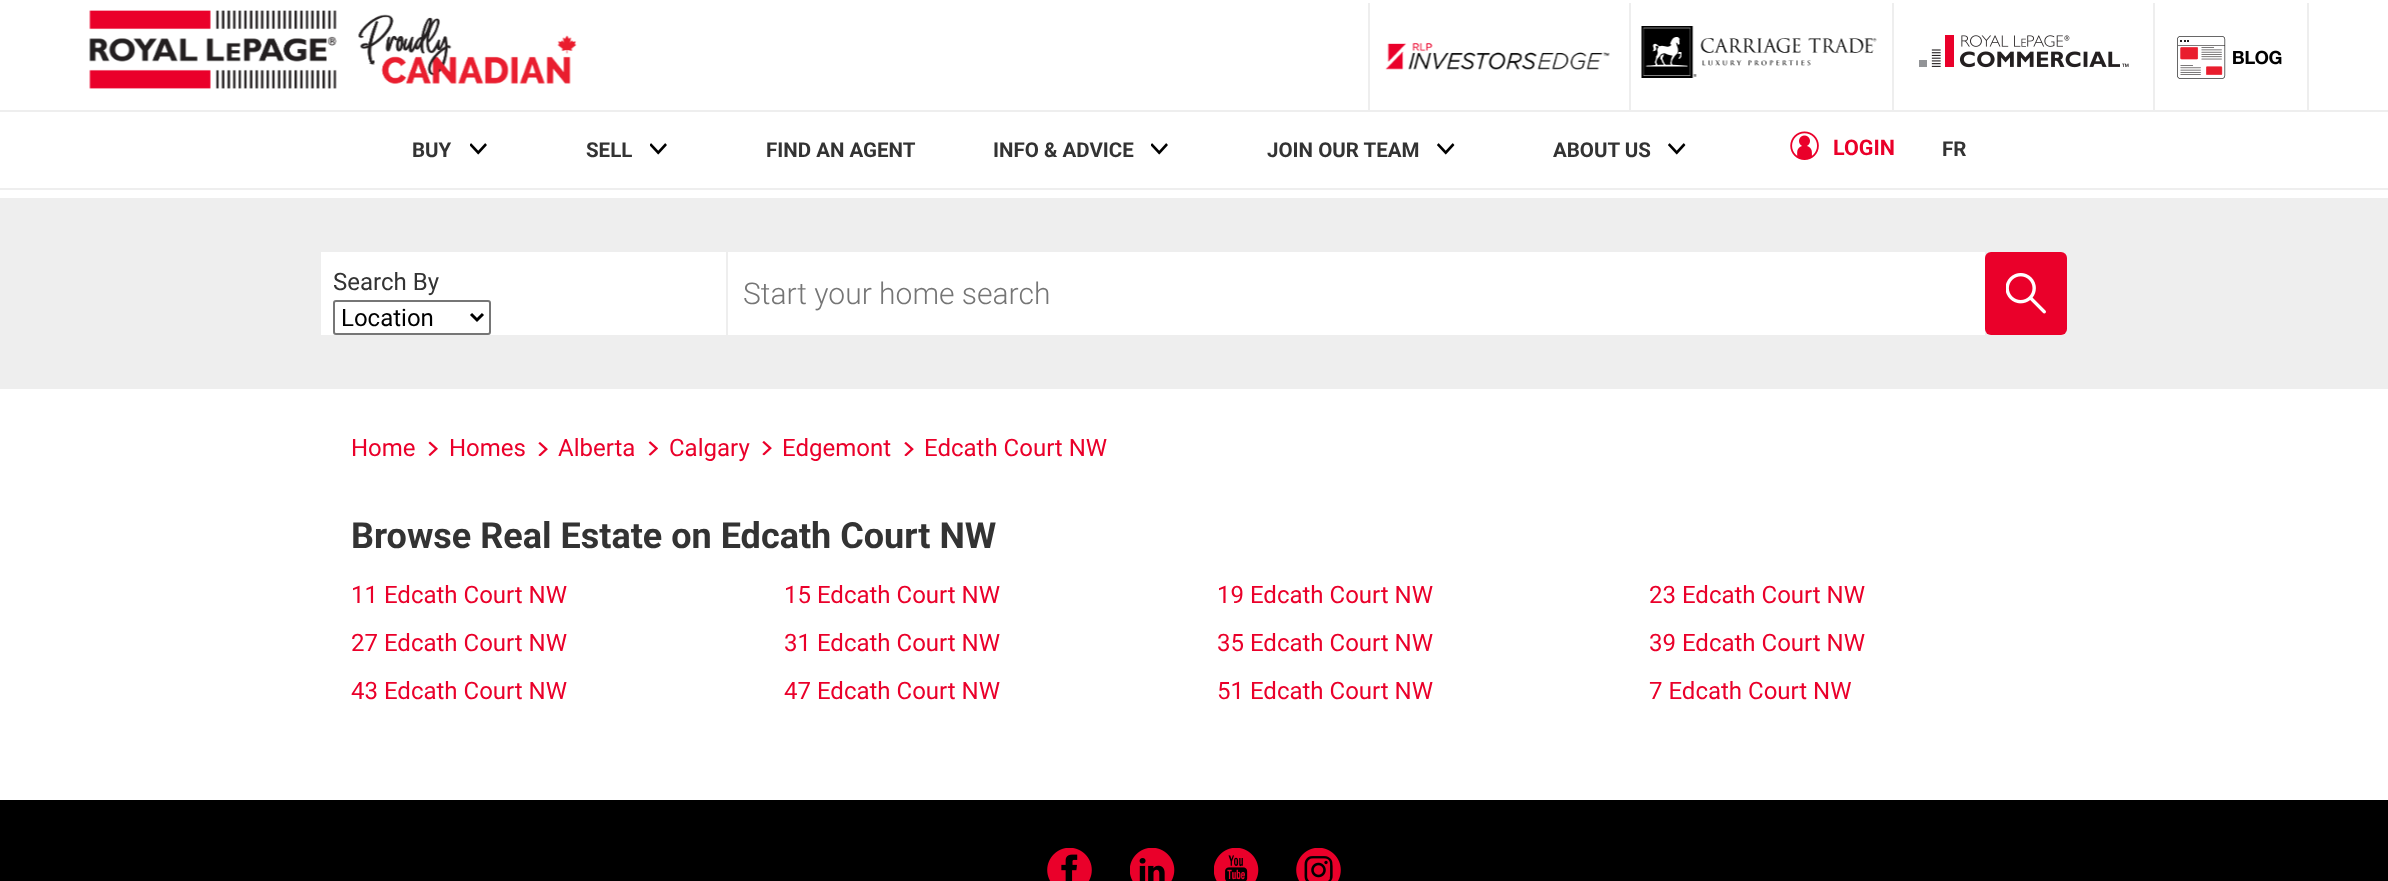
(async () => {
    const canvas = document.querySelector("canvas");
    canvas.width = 2388;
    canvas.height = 881;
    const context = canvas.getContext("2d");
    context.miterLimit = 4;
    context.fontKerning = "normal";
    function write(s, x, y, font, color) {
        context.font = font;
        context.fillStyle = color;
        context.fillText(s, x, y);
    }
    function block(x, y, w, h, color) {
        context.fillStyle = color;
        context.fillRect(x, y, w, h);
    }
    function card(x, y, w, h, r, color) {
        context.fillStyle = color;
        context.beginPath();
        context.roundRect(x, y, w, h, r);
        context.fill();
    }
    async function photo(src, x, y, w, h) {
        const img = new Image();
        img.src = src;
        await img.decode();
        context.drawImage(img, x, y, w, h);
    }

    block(0, 0, 2388, 881, "rgb(255, 255, 255)");
    await photo("media/1.png", 89, 10, 488, 79);
    block(1368, 3, 2, 107, "rgb(238, 238, 238)");
    await photo("media/2.png", 1385, 43, 225, 27);
    block(1629, 3, 2, 107, "rgb(238, 238, 238)");
    await photo("media/3.png", 1641, 26, 236, 52);
    block(1892, 3, 2, 107, "rgb(238, 238, 238)");
    await photo("media/4.png", 1919, 35, 210, 33);
    block(2307, 3, 2, 107, "rgb(238, 238, 238)");
    block(2153, 3, 2, 107, "rgb(238, 238, 238)");
    await photo("media/5.png", 2177, 36, 105, 43);
    block(0, 110, 2388, 2, "rgb(238, 238, 238)");
    block(0, 188, 2388, 2, "rgb(238, 238, 238)");
    write("BUY", 412, 157, "bold 20.5px Roboto", "rgb(51, 51, 51)");
    await photo("media/6.png", 470, 143, 17, 12);
    write("SELL", 586, 157, "bold 20.5px Roboto", "rgb(51, 51, 51)");
    await photo("media/6.png", 650, 143, 17, 12);
    write("FIND AN AGENT", 766, 157, "bold 20.5px Roboto", "rgb(51, 51, 51)");
    write("INFO & ADVICE", 993, 157, "bold 20.5px Roboto", "rgb(51, 51, 51)");
    await photo("media/6.png", 1151, 143, 17, 12);
    write("JOIN OUR TEAM", 1267, 157, "bold 20.5px Roboto", "rgb(51, 51, 51)");
    await photo("media/7.png", 1437, 143, 18, 12);
    write("ABOUT US", 1553, 157, "bold 20.5px Roboto", "rgb(51, 51, 51)");
    await photo("media/7.png", 1668, 143, 18, 12);
    await photo("media/8.png", 1790, 131, 29, 29);
    write("LOGIN", 1833, 155, "bold 21.5px Roboto", "rgb(234, 0, 42)");
    write("FR", 1942, 156, "bold 20.5px Roboto", "rgb(51, 51, 51)");
    block(0, 198, 2388, 191, "rgb(238, 238, 238)");
    block(321, 252, 405, 83, "rgb(255, 255, 255)");
    write("Search By", 333, 290, "24px Roboto", "rgb(51, 51, 51)");
    context.beginPath();
    context.roundRect(334, 301, 156, 33, 2);
    context.strokeStyle = "rgb(118, 118, 118)";
    context.lineWidth = 2;
    context.stroke();
    context.beginPath();
    context.moveTo(471, 314);
    context.lineTo(477, 320);
    context.lineTo(483, 314);
    context.strokeStyle = "rgb(0, 0, 0)";
    context.lineWidth = 3;
    context.stroke();
    write("Location", 341, 326, "24px Roboto", "rgb(0, 0, 0)");
    block(728, 252, 1257, 83, "rgb(255, 255, 255)");
    write("Start your home search", 743, 304, "300 30px Roboto", "rgb(117, 117, 117)");
    card(1985, 252, 82, 83, 6, "rgb(234, 0, 42)");
    await photo("media/9.png", 2006, 273, 40, 41);
    write("Home", 351, 456, "24px Roboto", "rgb(234, 0, 42)");
    await photo("media/10.png", 428, 441, 10, 15);
    write("Homes", 449, 456, "24px Roboto", "rgb(234, 0, 42)");
    await photo("media/11.png", 538, 442, 10, 14);
    write("Alberta", 558, 456, "24px Roboto", "rgb(234, 0, 42)");
    await photo("media/12.png", 648, 441, 10, 15);
    write("Calgary", 669, 456, "24px Roboto", "rgb(234, 0, 42)");
    await photo("media/13.png", 762, 441, 10, 15);
    write("Edgemont", 782, 456, "24px Roboto", "rgb(234, 0, 42)");
    await photo("media/14.png", 904, 442, 10, 14);
    write("Edcath Court NW", 924, 456, "24px Roboto", "rgb(234, 0, 42)");
    write("Browse Real Estate on Edcath Court NW", 351, 548, "bold 36px Roboto", "rgb(51, 51, 51)");
    write("11 Edcath Court NW", 351, 603, "24px Roboto", "rgb(234, 0, 42)");
    write("15 Edcath Court NW", 784, 603, "24px Roboto", "rgb(234, 0, 42)");
    write("19 Edcath Court NW", 1217, 603, "24px Roboto", "rgb(234, 0, 42)");
    write("23 Edcath Court NW", 1649, 603, "24px Roboto", "rgb(234, 0, 42)");
    write("27 Edcath Court NW", 351, 651, "24px Roboto", "rgb(234, 0, 42)");
    write("31 Edcath Court NW", 784, 651, "24px Roboto", "rgb(234, 0, 42)");
    write("35 Edcath Court NW", 1217, 651, "24px Roboto", "rgb(234, 0, 42)");
    write("39 Edcath Court NW", 1649, 651, "24px Roboto", "rgb(234, 0, 42)");
    write("43 Edcath Court NW", 351, 699, "24px Roboto", "rgb(234, 0, 42)");
    write("47 Edcath Court NW", 784, 699, "24px Roboto", "rgb(234, 0, 42)");
    write("51 Edcath Court NW", 1217, 699, "24px Roboto", "rgb(234, 0, 42)");
    write("7 Edcath Court NW", 1649, 699, "24px Roboto", "rgb(234, 0, 42)");
    block(0, 800, 2388, 81, "rgb(0, 0, 0)");
    await photo("media/15.png", 1047, 848, 45, 33);
    await photo("media/16.png", 1130, 848, 45, 33);
    await photo("media/17.png", 1214, 848, 45, 33);
    await photo("media/18.png", 1296, 848, 45, 33);
})();
